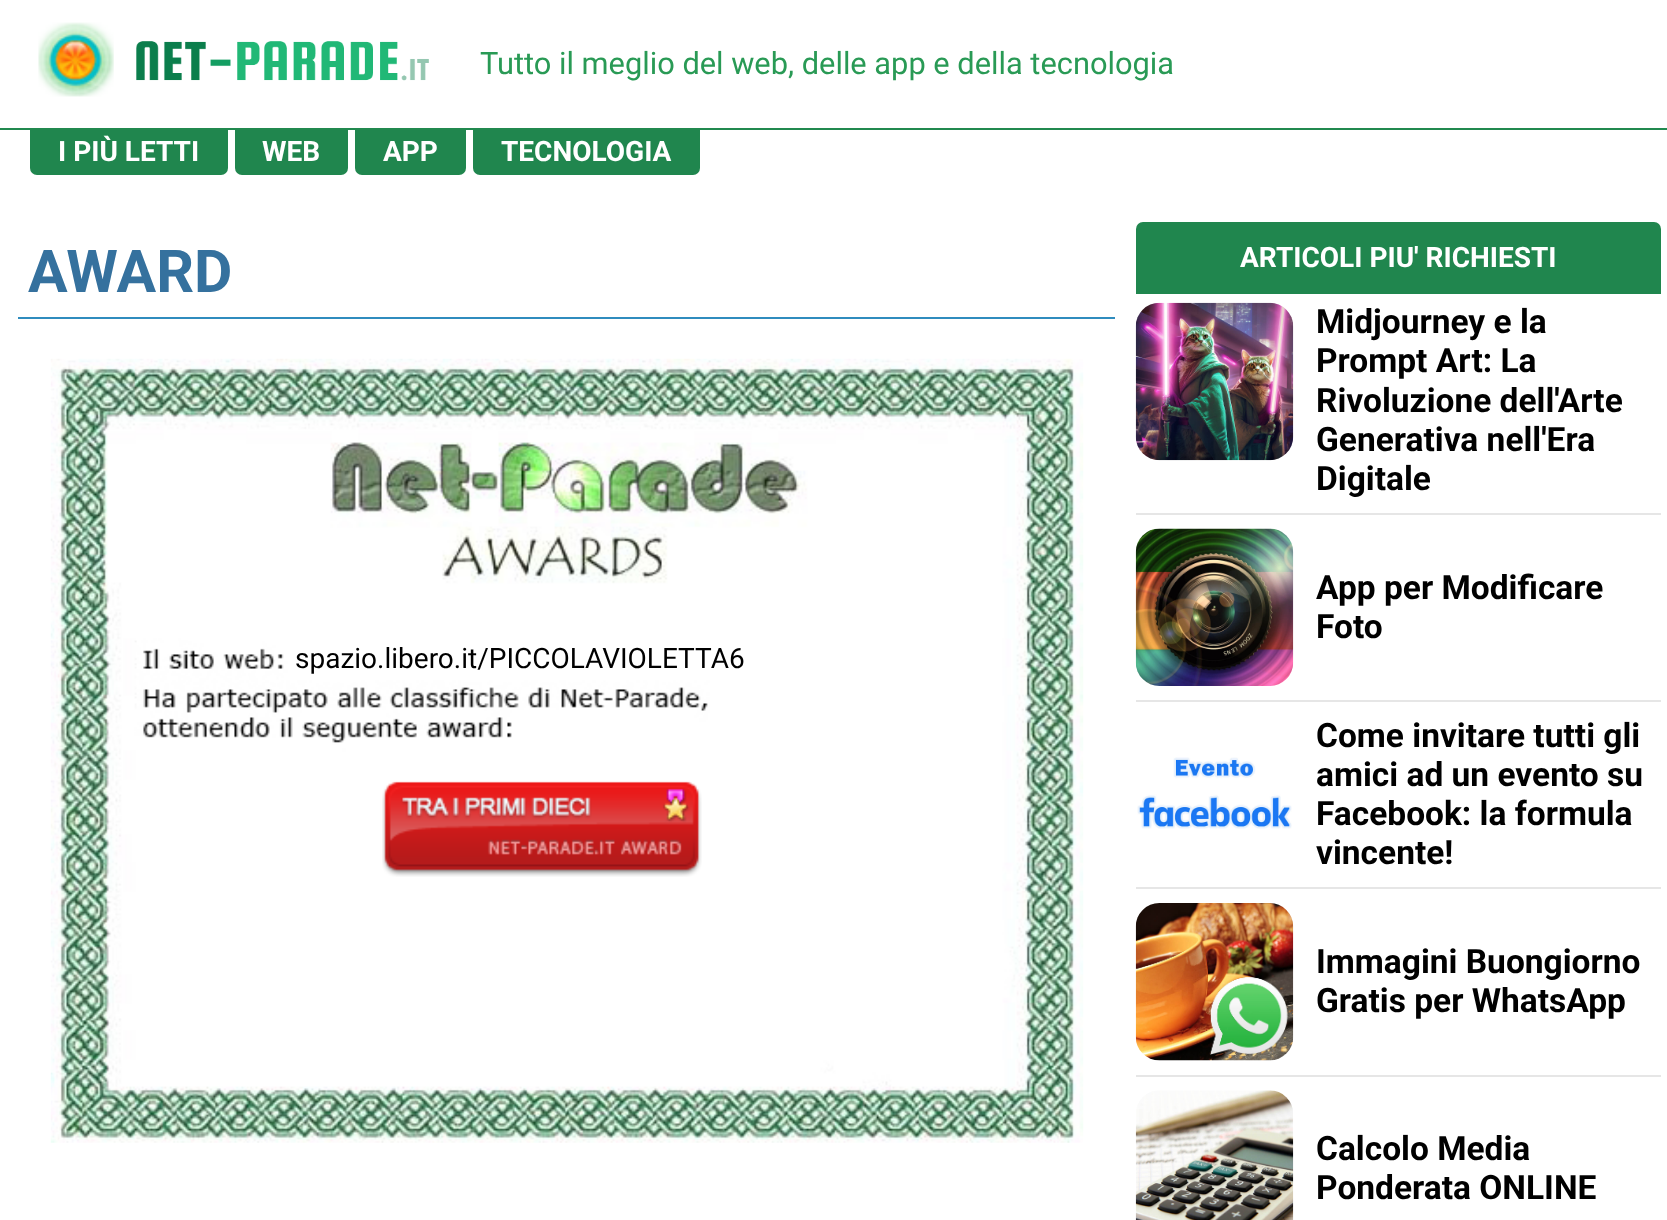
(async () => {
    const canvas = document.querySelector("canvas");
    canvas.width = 1667;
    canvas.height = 1220;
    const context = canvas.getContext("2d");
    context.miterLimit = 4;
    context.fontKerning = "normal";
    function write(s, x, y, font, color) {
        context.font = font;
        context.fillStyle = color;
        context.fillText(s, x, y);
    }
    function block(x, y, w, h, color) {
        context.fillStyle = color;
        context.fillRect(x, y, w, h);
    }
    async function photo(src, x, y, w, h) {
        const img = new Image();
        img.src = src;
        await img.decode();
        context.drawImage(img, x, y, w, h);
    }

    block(0, 0, 1667, 1220, "rgb(255, 255, 255)");
    await photo("media/1.png", 38, 22, 76, 75);
    await photo("media/2.png", 136, 41, 293, 40);
    write("Tutto il meglio del web, delle app e della tecnologia", 480, 74, "30.8px Roboto", "rgb(41, 154, 85)");
    block(0, 128, 1667, 2, "rgb(33, 137, 79)");
    context.fillStyle = "rgb(32, 134, 78)";
    context.beginPath();
    context.roundRect(30, 130, 198, 45, [0, 0, 7, 7]);
    context.fill();
    write("I PIÙ LETTI", 58, 161, "bold 28px Roboto", "rgb(255, 255, 255)");
    context.fillStyle = "rgb(32, 134, 78)";
    context.beginPath();
    context.roundRect(235, 130, 113, 45, [0, 0, 7, 7]);
    context.fill();
    write("WEB", 262, 161, "bold 28px Roboto", "rgb(255, 255, 255)");
    context.fillStyle = "rgb(32, 134, 78)";
    context.beginPath();
    context.roundRect(355, 130, 111, 45, [0, 0, 7, 7]);
    context.fill();
    write("APP", 383, 161, "bold 28px Roboto", "rgb(255, 255, 255)");
    context.fillStyle = "rgb(32, 134, 78)";
    context.beginPath();
    context.roundRect(473, 130, 227, 45, [0, 0, 7, 7]);
    context.fill();
    write("TECNOLOGIA", 501, 161, "bold 28px Roboto", "rgb(255, 255, 255)");
    block(18, 317, 1097, 2, "rgb(47, 140, 190)");
    write("AWARD", 28, 292, "bold 59px Roboto", "rgb(53, 113, 158)");
    await photo("media/3.png", 50, 358, 1034, 785);
    write("spazio.libero.it/PICCOLAVIOLETTA6", 295, 668, "28px Roboto", "rgb(0, 0, 0)");
    await photo("media/4.png", 382, 781, 320, 96);
    context.fillStyle = "rgb(32, 134, 78)";
    context.beginPath();
    context.roundRect(1136, 222, 525, 72, [7, 7, 0, 0]);
    context.fill();
    write("ARTICOLI PIU' RICHIESTI", 1240, 267, "bold 28px Roboto", "rgb(255, 255, 255)");
    await photo("media/5.png", 1135, 302, 159, 159);
    write("Midjourney e la", 1316, 333, "bold 33.5px Roboto", "rgb(0, 0, 0)");
    write("Prompt Art: La", 1316, 372, "bold 33.5px Roboto", "rgb(0, 0, 0)");
    write("Rivoluzione dell'Arte", 1316, 412, "bold 33.5px Roboto", "rgb(0, 0, 0)");
    write("Generativa nell'Era", 1316, 451, "bold 33.5px Roboto", "rgb(0, 0, 0)");
    write("Digitale", 1316, 490, "bold 33.5px Roboto", "rgb(0, 0, 0)");
    block(1136, 513, 525, 2, "rgb(230, 230, 230)");
    await photo("media/6.png", 1135, 528, 159, 158);
    write("App per Modificare", 1316, 599, "bold 33.5px Roboto", "rgb(0, 0, 0)");
    write("Foto", 1316, 638, "bold 33.5px Roboto", "rgb(0, 0, 0)");
    block(1136, 700, 525, 2, "rgb(230, 230, 230)");
    await photo("media/7.png", 1137, 757, 155, 72);
    write("Come invitare tutti gli", 1316, 747, "bold 33.5px Roboto", "rgb(0, 0, 0)");
    write("amici ad un evento su", 1316, 786, "bold 33.5px Roboto", "rgb(0, 0, 0)");
    write("Facebook: la formula", 1316, 825, "bold 33.5px Roboto", "rgb(0, 0, 0)");
    write("vincente!", 1316, 864, "bold 33.5px Roboto", "rgb(0, 0, 0)");
    block(1136, 887, 525, 2, "rgb(230, 230, 230)");
    await photo("media/8.png", 1135, 903, 159, 158);
    write("Immagini Buongiorno", 1316, 973, "bold 33.5px Roboto", "rgb(0, 0, 0)");
    write("Gratis per WhatsApp", 1316, 1012, "bold 33.5px Roboto", "rgb(0, 0, 0)");
    block(1136, 1075, 525, 2, "rgb(230, 230, 230)");
    await photo("media/9.png", 1135, 1090, 159, 130);
    write("Calcolo Media", 1316, 1160, "bold 33.5px Roboto", "rgb(0, 0, 0)");
    write("Ponderata ONLINE", 1316, 1199, "bold 33.5px Roboto", "rgb(0, 0, 0)");
})();
